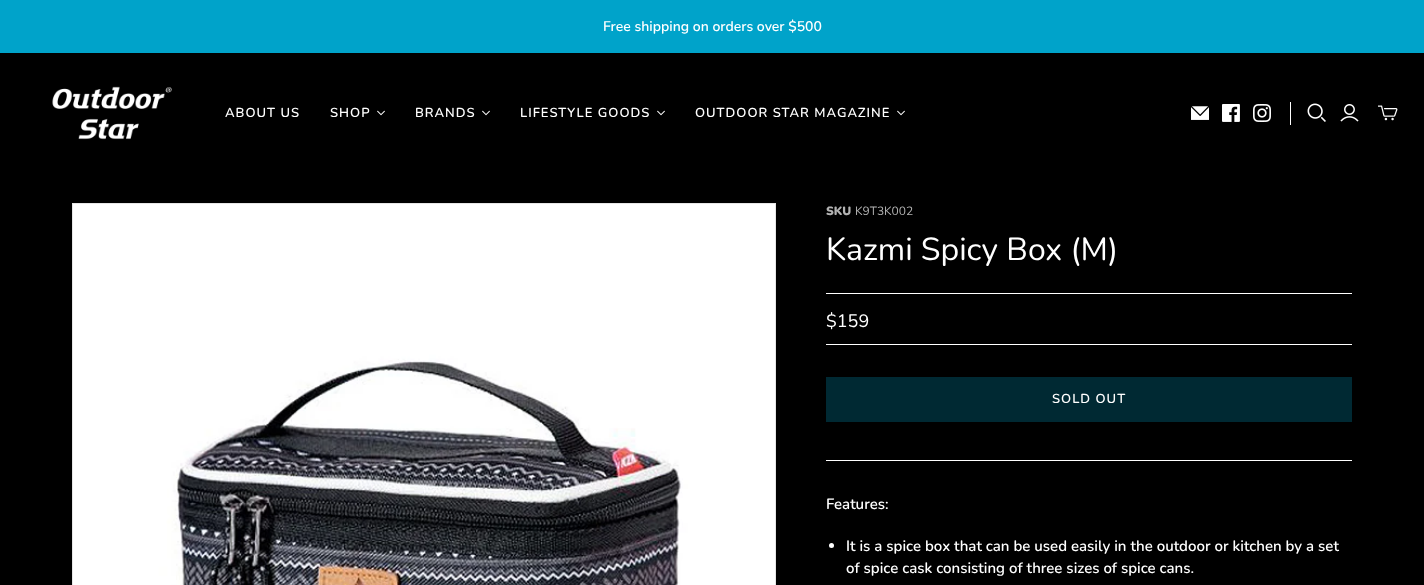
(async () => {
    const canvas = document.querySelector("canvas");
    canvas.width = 1424;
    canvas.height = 585;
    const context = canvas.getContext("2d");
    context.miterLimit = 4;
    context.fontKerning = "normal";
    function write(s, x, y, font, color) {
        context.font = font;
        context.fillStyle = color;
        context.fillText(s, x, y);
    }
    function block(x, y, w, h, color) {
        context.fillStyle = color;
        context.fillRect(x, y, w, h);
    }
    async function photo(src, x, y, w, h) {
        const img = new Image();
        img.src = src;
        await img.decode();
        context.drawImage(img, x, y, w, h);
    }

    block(0, 0, 1424, 585, "rgb(0, 0, 0)");
    block(0, 0, 1424, 53, "rgb(0, 163, 202)");
    write("Free shipping on orders over $500", 603, 31, "600 14px Nunito", "rgb(255, 255, 255)");
    await photo("media/1.png", 52, 86, 120, 54);
    context.letterSpacing = "1px";
    write("ABOUT US", 225, 117, "600 13px Nunito", "rgb(255, 255, 255)");
    write("SHOP", 330, 117, "600 13px Nunito", "rgb(255, 255, 255)");
    await photo("media/2.png", 377, 110, 8, 6);
    write("BRANDS", 415, 117, "600 13px Nunito", "rgb(255, 255, 255)");
    await photo("media/2.png", 482, 110, 8, 6);
    write("LIFESTYLE GOODS", 520, 117, "600 13px Nunito", "rgb(255, 255, 255)");
    await photo("media/2.png", 657, 110, 8, 6);
    write("OUTDOOR STAR MAGAZINE", 695, 117, "600 13px Nunito", "rgb(255, 255, 255)");
    await photo("media/2.png", 897, 110, 8, 6);
    await photo("media/3.png", 1191, 106, 18, 14);
    await photo("media/4.png", 1222, 104, 18, 18);
    await photo("media/5.png", 1253, 104, 18, 18);
    block(1290, 102, 1, 23, "rgb(255, 255, 255)");
    await photo("media/6.png", 1307, 103, 19, 19);
    await photo("media/7.png", 1340, 104, 19, 18);
    await photo("media/8.png", 1378, 105, 20, 16);
    await photo("media/9.png", 73, 204, 702, 381);
    context.strokeStyle = "rgb(230, 230, 230)";
    context.strokeRect(72.5, 203.5, 703, 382);
    context.letterSpacing = "0px";
    write("SKU", 826, 215, "900 12px Nunito", "rgb(179, 179, 179)");
    write("K9T3K002", 855, 215, "12px Nunito", "rgb(179, 179, 179)");
    block(826, 293, 526, 1, "rgb(255, 255, 255)");
    write("Kazmi Spicy Box (M)", 826, 260, "32px Nunito", "rgb(255, 255, 255)");
    block(826, 344, 526, 1, "rgb(255, 255, 255)");
    write("$159", 826, 327, "18px Nunito", "rgb(255, 255, 255)");
    block(826, 460, 526, 1, "rgb(255, 255, 255)");
    block(826, 377, 526, 45, "rgb(0, 41, 51)");
    context.letterSpacing = "1px";
    write("SOLD OUT", 1052, 403, "600 13px Nunito", "rgb(255, 255, 255)");
    context.letterSpacing = "0px";
    write("Features:", 826, 509, "600 15px Nunito", "rgb(255, 255, 255)");
    context.beginPath();
    context.arc(831.5, 545.5, 2.5, 0, Math.PI * 2);
    context.fill();
    write("It is a spice box that can be used easily in the outdoor or kitchen by a set", 846, 551, "600 15px Nunito", "rgb(255, 255, 255)");
    write("of spice cask consisting of three sizes of spice cans.", 846, 573, "600 15px Nunito", "rgb(255, 255, 255)");
})();
